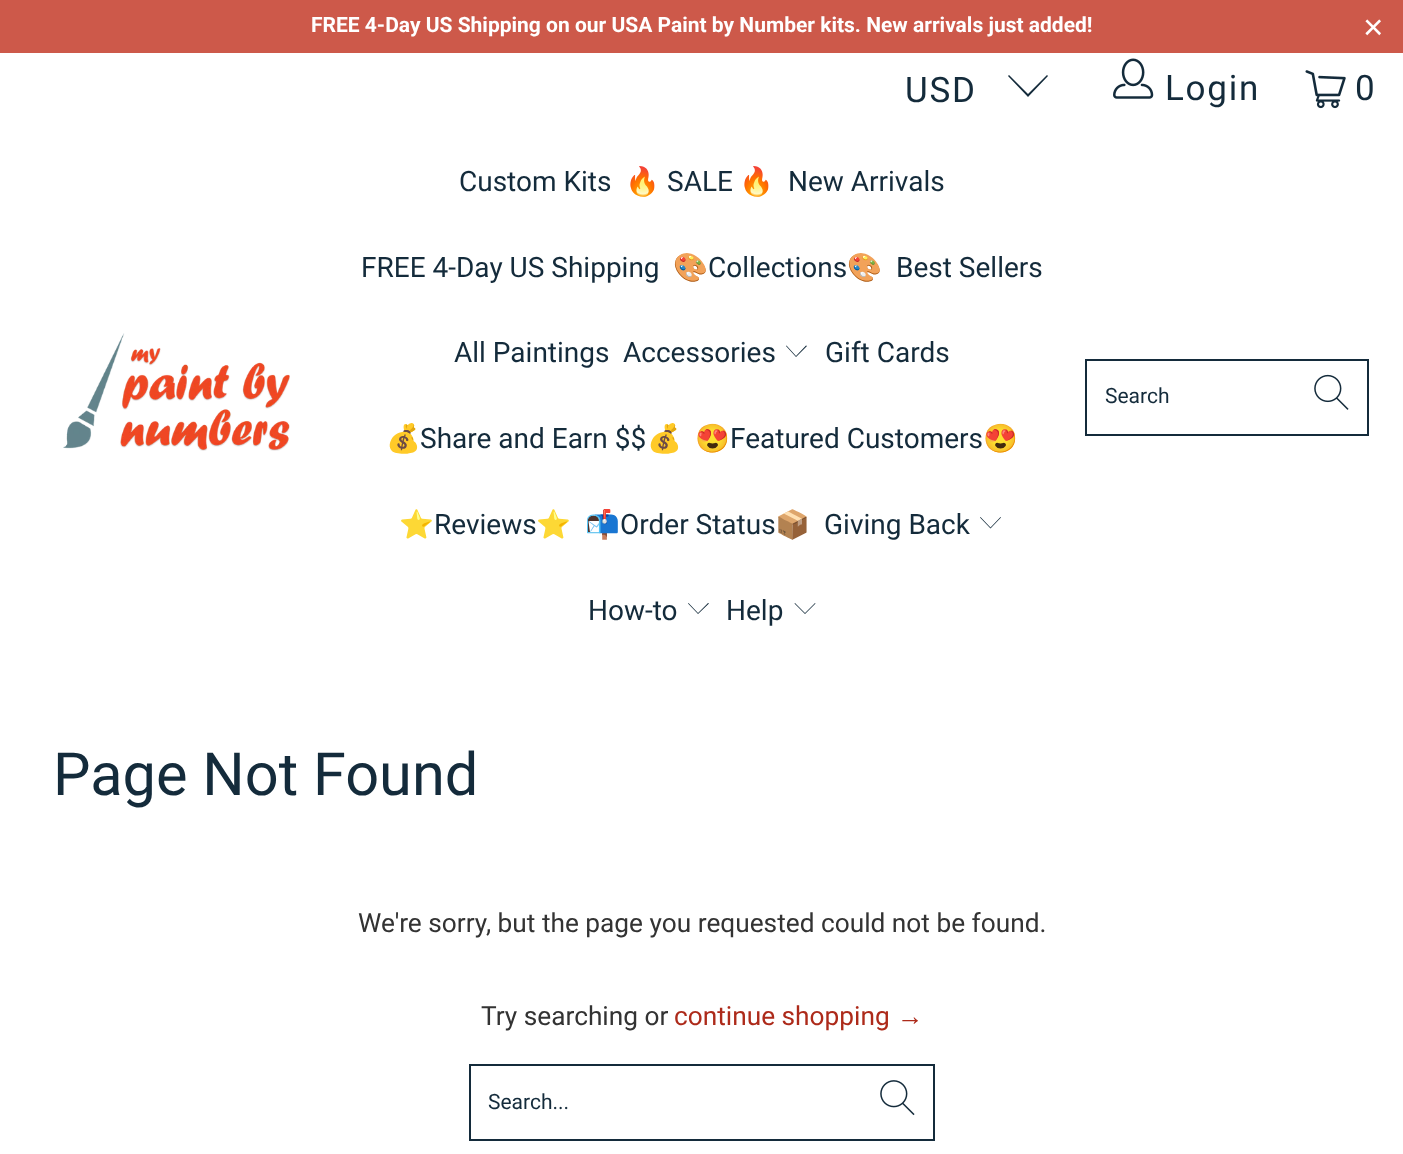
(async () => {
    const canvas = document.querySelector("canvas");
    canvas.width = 1403;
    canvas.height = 1154;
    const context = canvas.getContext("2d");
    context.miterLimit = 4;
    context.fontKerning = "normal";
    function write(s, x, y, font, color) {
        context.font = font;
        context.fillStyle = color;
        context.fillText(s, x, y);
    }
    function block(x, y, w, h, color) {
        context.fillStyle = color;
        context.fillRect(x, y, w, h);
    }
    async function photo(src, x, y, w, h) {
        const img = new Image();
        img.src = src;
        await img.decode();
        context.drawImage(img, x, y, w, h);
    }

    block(0, 0, 1403, 1154, "rgb(255, 255, 255)");
    block(0, 0, 1403, 53, "rgb(205, 89, 74)");
    write("FREE 4-Day US Shipping on our USA Paint by Number kits. New arrivals just added!", 311, 32, "bold 21px Roboto", "rgb(255, 255, 255)");
    write("×", 1363, 39, "35px Liberation Sans", "rgb(255, 255, 255)");
    context.letterSpacing = "1.75px";
    write("USD", 905, 102, "35px Roboto", "rgb(20, 43, 59)");
    context.beginPath();
    context.moveTo(1028, 97);
    context.lineTo(1008, 76);
    context.lineTo(1009, 75);
    context.lineTo(1028, 94);
    context.lineTo(1047, 75);
    context.lineTo(1048, 76);
    context.closePath();
    context.fill();
    await photo("media/1.png", 1113, 58, 41, 41);
    write("Login", 1165, 100, "35px Roboto", "rgb(20, 43, 59)");
    await photo("media/2.png", 1305, 70, 41, 39);
    write("0", 1355, 100, "35px Roboto", "rgb(20, 43, 59)");
    await photo("media/3.png", 63, 333, 227, 118);
    context.letterSpacing = "0px";
    write("Custom Kits", 459, 191, "28px Roboto", "rgb(20, 43, 59)");
    write("🔥", 625, 191, "28px Noto Color Emoji", "rgb(20, 43, 59)");
    write("SALE", 667, 191, "28px Roboto", "rgb(20, 43, 59)");
    write("🔥", 739, 191, "28px Noto Color Emoji", "rgb(20, 43, 59)");
    write("New Arrivals", 788, 191, "28px Roboto", "rgb(20, 43, 59)");
    write("FREE 4-Day US Shipping", 361, 277, "28px Roboto", "rgb(20, 43, 59)");
    write("🎨", 673, 277, "28px Noto Color Emoji", "rgb(20, 43, 59)");
    write("Collections", 708, 277, "28px Roboto", "rgb(20, 43, 59)");
    write("🎨", 847, 277, "28px Noto Color Emoji", "rgb(20, 43, 59)");
    write("Best Sellers", 896, 277, "28px Roboto", "rgb(20, 43, 59)");
    write("All Paintings", 454, 362, "28px Roboto", "rgb(20, 43, 59)");
    write("Accessories", 623, 362, "28px Roboto", "rgb(20, 43, 59)");
    context.beginPath();
    context.moveTo(796, 357);
    context.lineTo(786, 346);
    context.lineTo(786.5, 345.5);
    context.lineTo(796, 356);
    context.lineTo(806, 345.5);
    context.lineTo(807, 346);
    context.closePath();
    context.fill();
    write("Gift Cards", 825, 362, "28px Roboto", "rgb(20, 43, 59)");
    write("💰", 386, 448, "28px Noto Color Emoji", "rgb(20, 43, 59)");
    write("Share and Earn $$", 420, 448, "28px Roboto", "rgb(20, 43, 59)");
    write("💰", 647, 448, "28px Noto Color Emoji", "rgb(20, 43, 59)");
    write("😍", 695, 448, "28px Noto Color Emoji", "rgb(20, 43, 59)");
    write("Featured Customers", 730, 448, "28px Roboto", "rgb(20, 43, 59)");
    write("😍", 983, 448, "28px Noto Color Emoji", "rgb(20, 43, 59)");
    write("⭐️", 399, 534, "28px Noto Color Emoji", "rgb(20, 43, 59)");
    write("Reviews", 434, 534, "28px Roboto", "rgb(20, 43, 59)");
    write("⭐️", 536, 534, "28px Noto Color Emoji", "rgb(20, 43, 59)");
    write("📬", 585, 534, "28px Noto Color Emoji", "rgb(20, 43, 59)");
    write("Order Status", 620, 534, "28px Roboto", "rgb(20, 43, 59)");
    write("📦", 775, 534, "28px Noto Color Emoji", "rgb(20, 43, 59)");
    write("Giving Back", 824, 534, "28px Roboto", "rgb(20, 43, 59)");
    context.beginPath();
    context.moveTo(990.5, 528.5);
    context.lineTo(980, 517.5);
    context.lineTo(980.5, 517);
    context.lineTo(990.5, 527.5);
    context.lineTo(1000.5, 517);
    context.lineTo(1001, 517.5);
    context.closePath();
    context.fill();
    write("How-to", 588, 620, "28px Roboto", "rgb(20, 43, 59)");
    context.beginPath();
    context.moveTo(698, 614);
    context.lineTo(688, 603.5);
    context.lineTo(688.5, 603);
    context.lineTo(698, 613);
    context.lineTo(708, 603);
    context.lineTo(709, 603.5);
    context.closePath();
    context.fill();
    write("Help", 726, 620, "28px Roboto", "rgb(20, 43, 59)");
    context.beginPath();
    context.moveTo(805, 614);
    context.lineTo(794.5, 603.5);
    context.lineTo(795, 603);
    context.lineTo(805, 613);
    context.lineTo(815, 603);
    context.lineTo(815.5, 603.5);
    context.closePath();
    context.fill();
    context.strokeStyle = "rgb(20, 43, 59)";
    context.lineWidth = 2;
    context.strokeRect(1086, 360, 282, 75);
    write("Search", 1105, 403, "21px Roboto", "rgb(20, 43, 59)");
    await photo("media/4.png", 1314, 374, 35, 36);
    write("Page Not Found", 53, 795, "59.5px Roboto", "rgb(20, 43, 59)");
    write("We're sorry, but the page you requested could not be found.", 358, 932, "26.25px Roboto", "rgb(51, 51, 51)");
    write("Try searching or", 481, 1025, "26.25px Roboto", "rgb(51, 51, 51)");
    write("continue shopping", 674, 1025, "26.25px Roboto", "rgb(173, 42, 26)");
    write("→", 897, 1025, "26.25px Liberation Sans", "rgb(173, 42, 26)");
    context.strokeRect(470, 1065, 464, 75);
    write("Search...", 488, 1109, "21px Roboto", "rgb(20, 43, 59)");
    await photo("media/5.png", 880, 1080, 35, 36);
})();
